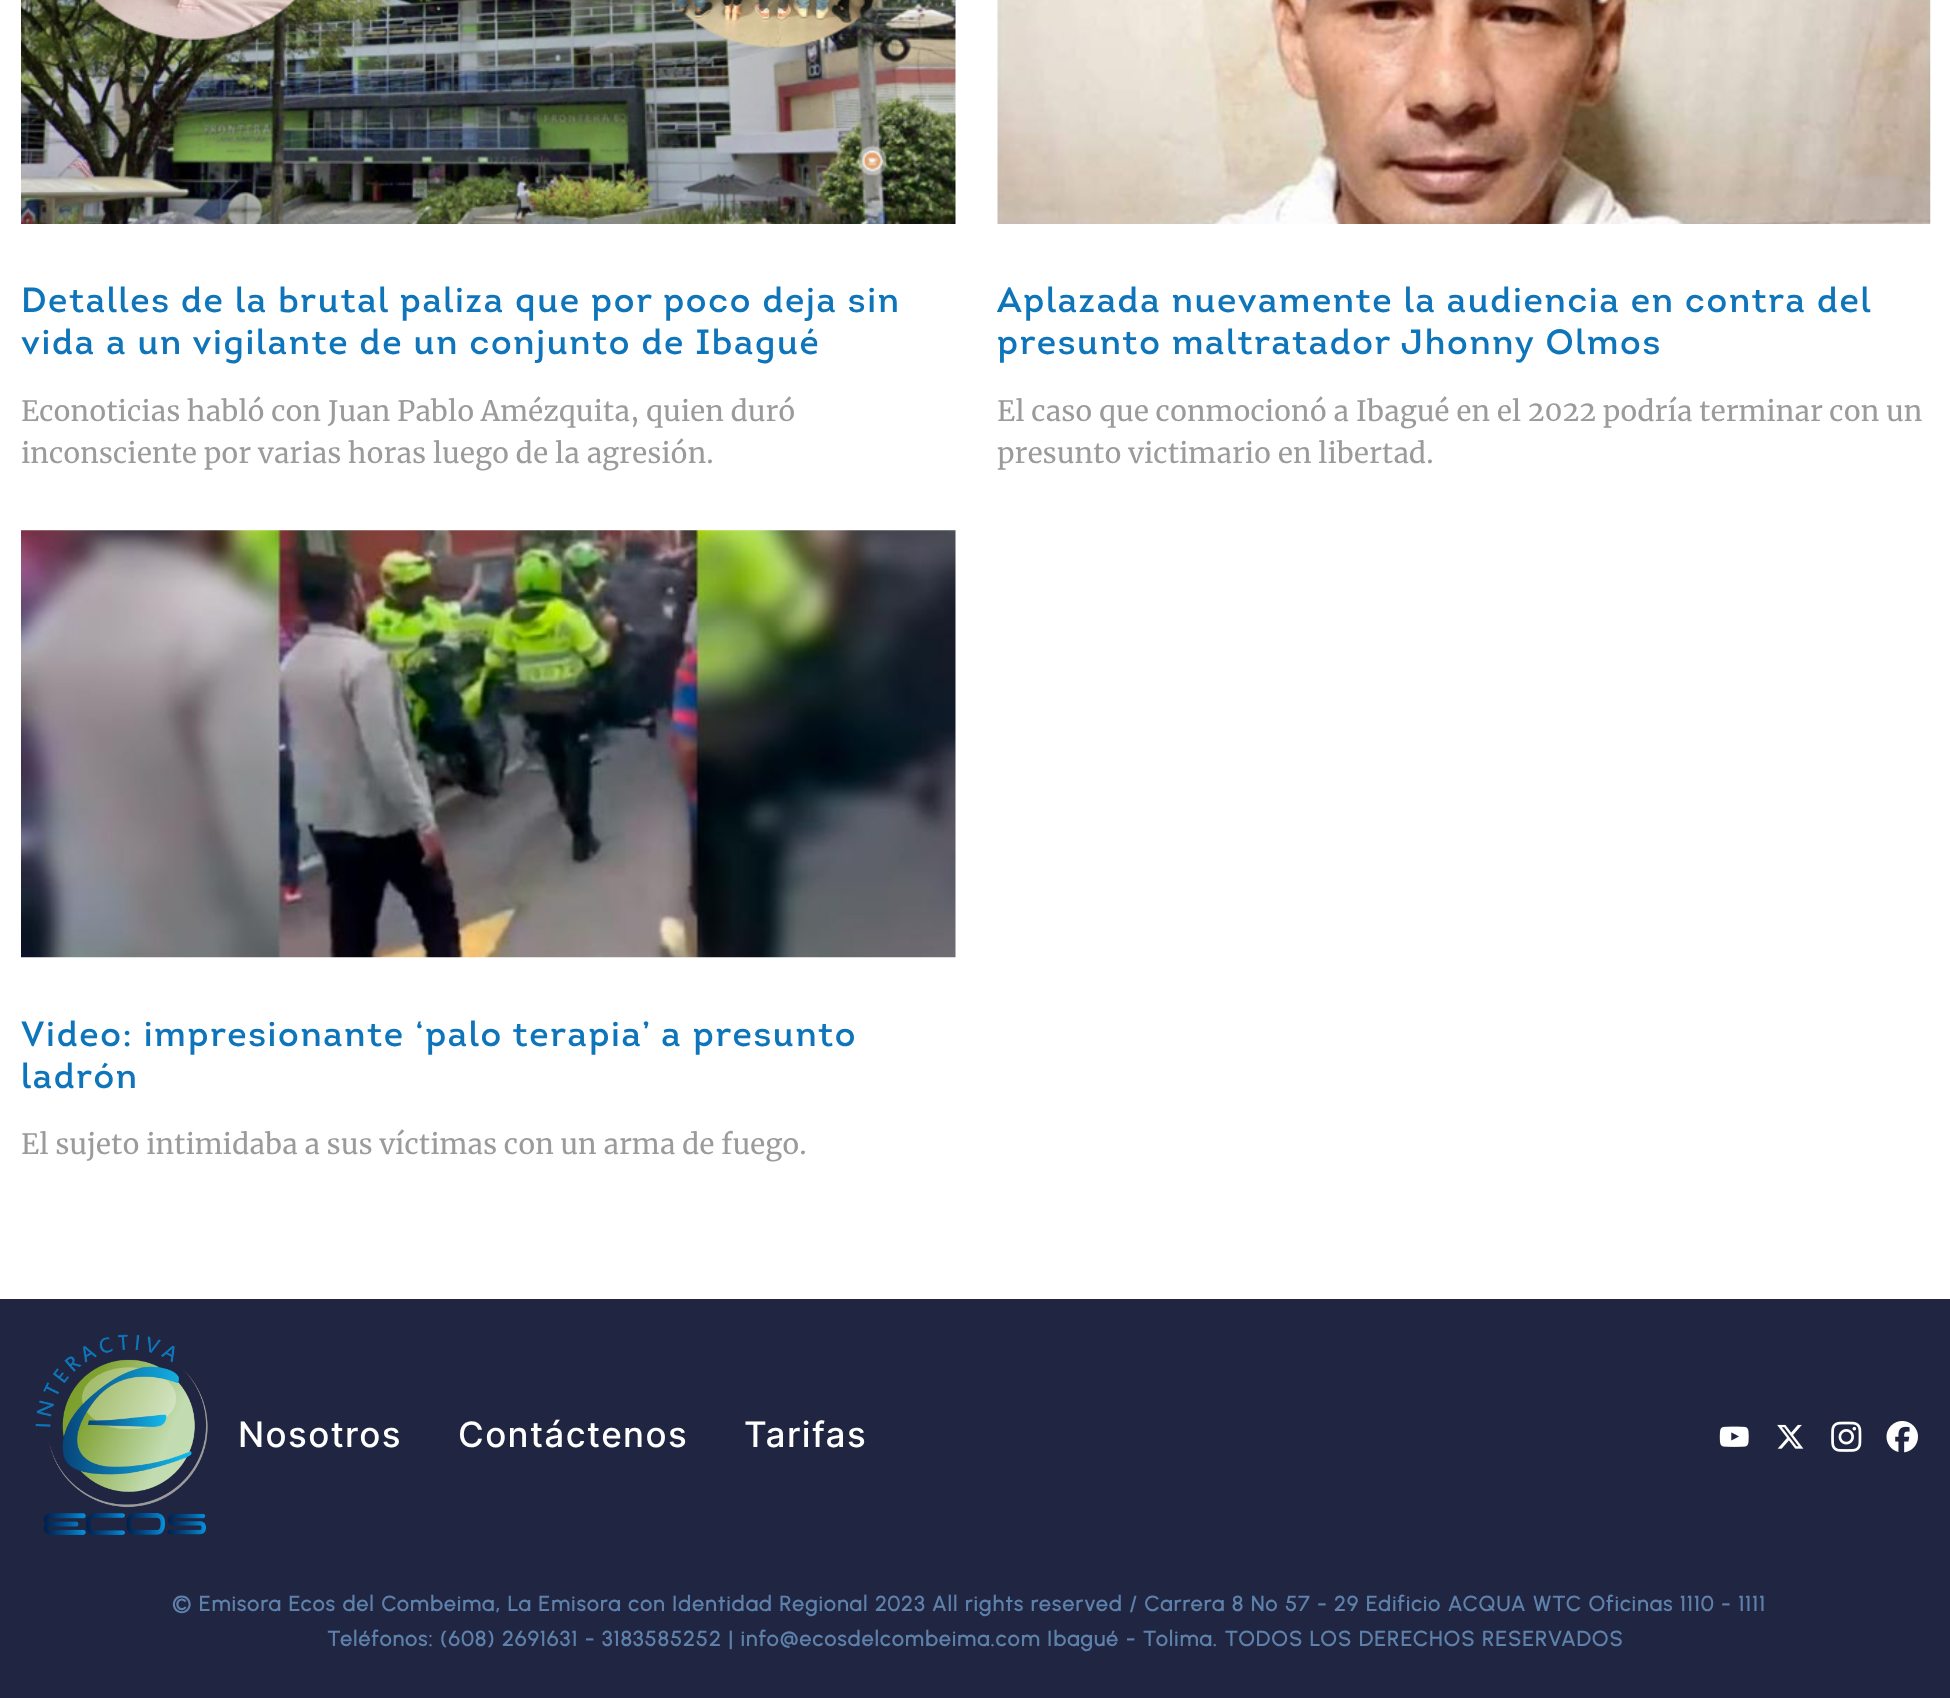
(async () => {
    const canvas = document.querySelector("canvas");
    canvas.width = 1950;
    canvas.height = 1698;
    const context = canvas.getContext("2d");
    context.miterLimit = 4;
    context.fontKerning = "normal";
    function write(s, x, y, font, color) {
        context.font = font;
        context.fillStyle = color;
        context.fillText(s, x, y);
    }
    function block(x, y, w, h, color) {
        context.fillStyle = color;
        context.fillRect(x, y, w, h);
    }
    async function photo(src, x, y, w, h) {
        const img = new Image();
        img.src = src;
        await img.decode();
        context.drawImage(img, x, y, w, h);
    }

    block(0, 0, 1950, 1698, "rgb(255, 255, 255)");
    await photo("media/1.png", 21, 0, 935, 224);
    context.letterSpacing = "1.68px";
    write("Detalles de la brutal paliza que por poco deja sin", 21, 312, "35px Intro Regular", "rgb(15, 117, 187)");
    write("vida a un vigilante de un conjunto de Ibagué", 21, 354, "35px Intro Regular", "rgb(15, 117, 187)");
    context.letterSpacing = "0px";
    write("Econoticias habló con Juan Pablo Amézquita, quien duró", 21, 421, "28px Merriweather", "rgb(156, 155, 155)");
    write("inconsciente por varias horas luego de la agresión.", 21, 463, "28px Merriweather", "rgb(156, 155, 155)");
    await photo("media/2.png", 997, 0, 934, 224);
    context.letterSpacing = "1.68px";
    write("Aplazada nuevamente la audiencia en contra del", 997, 312, "35px Intro Regular", "rgb(15, 117, 187)");
    write("presunto maltratador Jhonny Olmos", 997, 354, "35px Intro Regular", "rgb(15, 117, 187)");
    context.letterSpacing = "0px";
    write("El caso que conmocionó a Ibagué en el 2022 podría terminar con un", 997, 421, "28px Merriweather", "rgb(156, 155, 155)");
    write("presunto victimario en libertad.", 997, 463, "28px Merriweather", "rgb(156, 155, 155)");
    await photo("media/3.png", 21, 530, 935, 428);
    context.letterSpacing = "1.68px";
    write("Video: impresionante ‘palo terapia’ a presunto", 21, 1046, "35px Intro Regular", "rgb(15, 117, 187)");
    write("ladrón", 21, 1088, "35px Intro Regular", "rgb(15, 117, 187)");
    context.letterSpacing = "0px";
    write("El sujeto intimidaba a sus víctimas con un arma de fuego.", 21, 1154, "28px Merriweather", "rgb(156, 155, 155)");
    block(0, 1299, 1950, 399, "rgb(32, 38, 65)");
    await photo("media/4.png", 35, 1334, 173, 201);
    context.letterSpacing = "1.4px";
    write("Nosotros", 238, 1447, "500 35px Inter", "rgb(255, 255, 255)");
    write("Contáctenos", 458, 1447, "500 35px Inter", "rgb(255, 255, 255)");
    write("Tarifas", 744, 1447, "500 35px Inter", "rgb(255, 255, 255)");
    await photo("media/5.png", 1719, 1426, 30, 21);
    await photo("media/6.png", 1777, 1424, 27, 25);
    await photo("media/7.png", 1831, 1421, 31, 31);
    await photo("media/8.png", 1886, 1421, 32, 32);
    write("© Emisora Ecos del Combeima, La Emisora con Identidad Regional 2023 All rights reserved / Carrera 8 No 57 - 29 Edificio ACQUA WTC Oficinas 1110 - 1111", 172, 1611, "bold 21px Urbanist", "rgb(94, 129, 172)");
    write("Teléfonos: (608) 2691631 - 3183585252 | info@ecosdelcombeima.com Ibagué - Tolima. TODOS LOS DERECHOS RESERVADOS", 327, 1646, "bold 21px Urbanist", "rgb(94, 129, 172)");
})();
